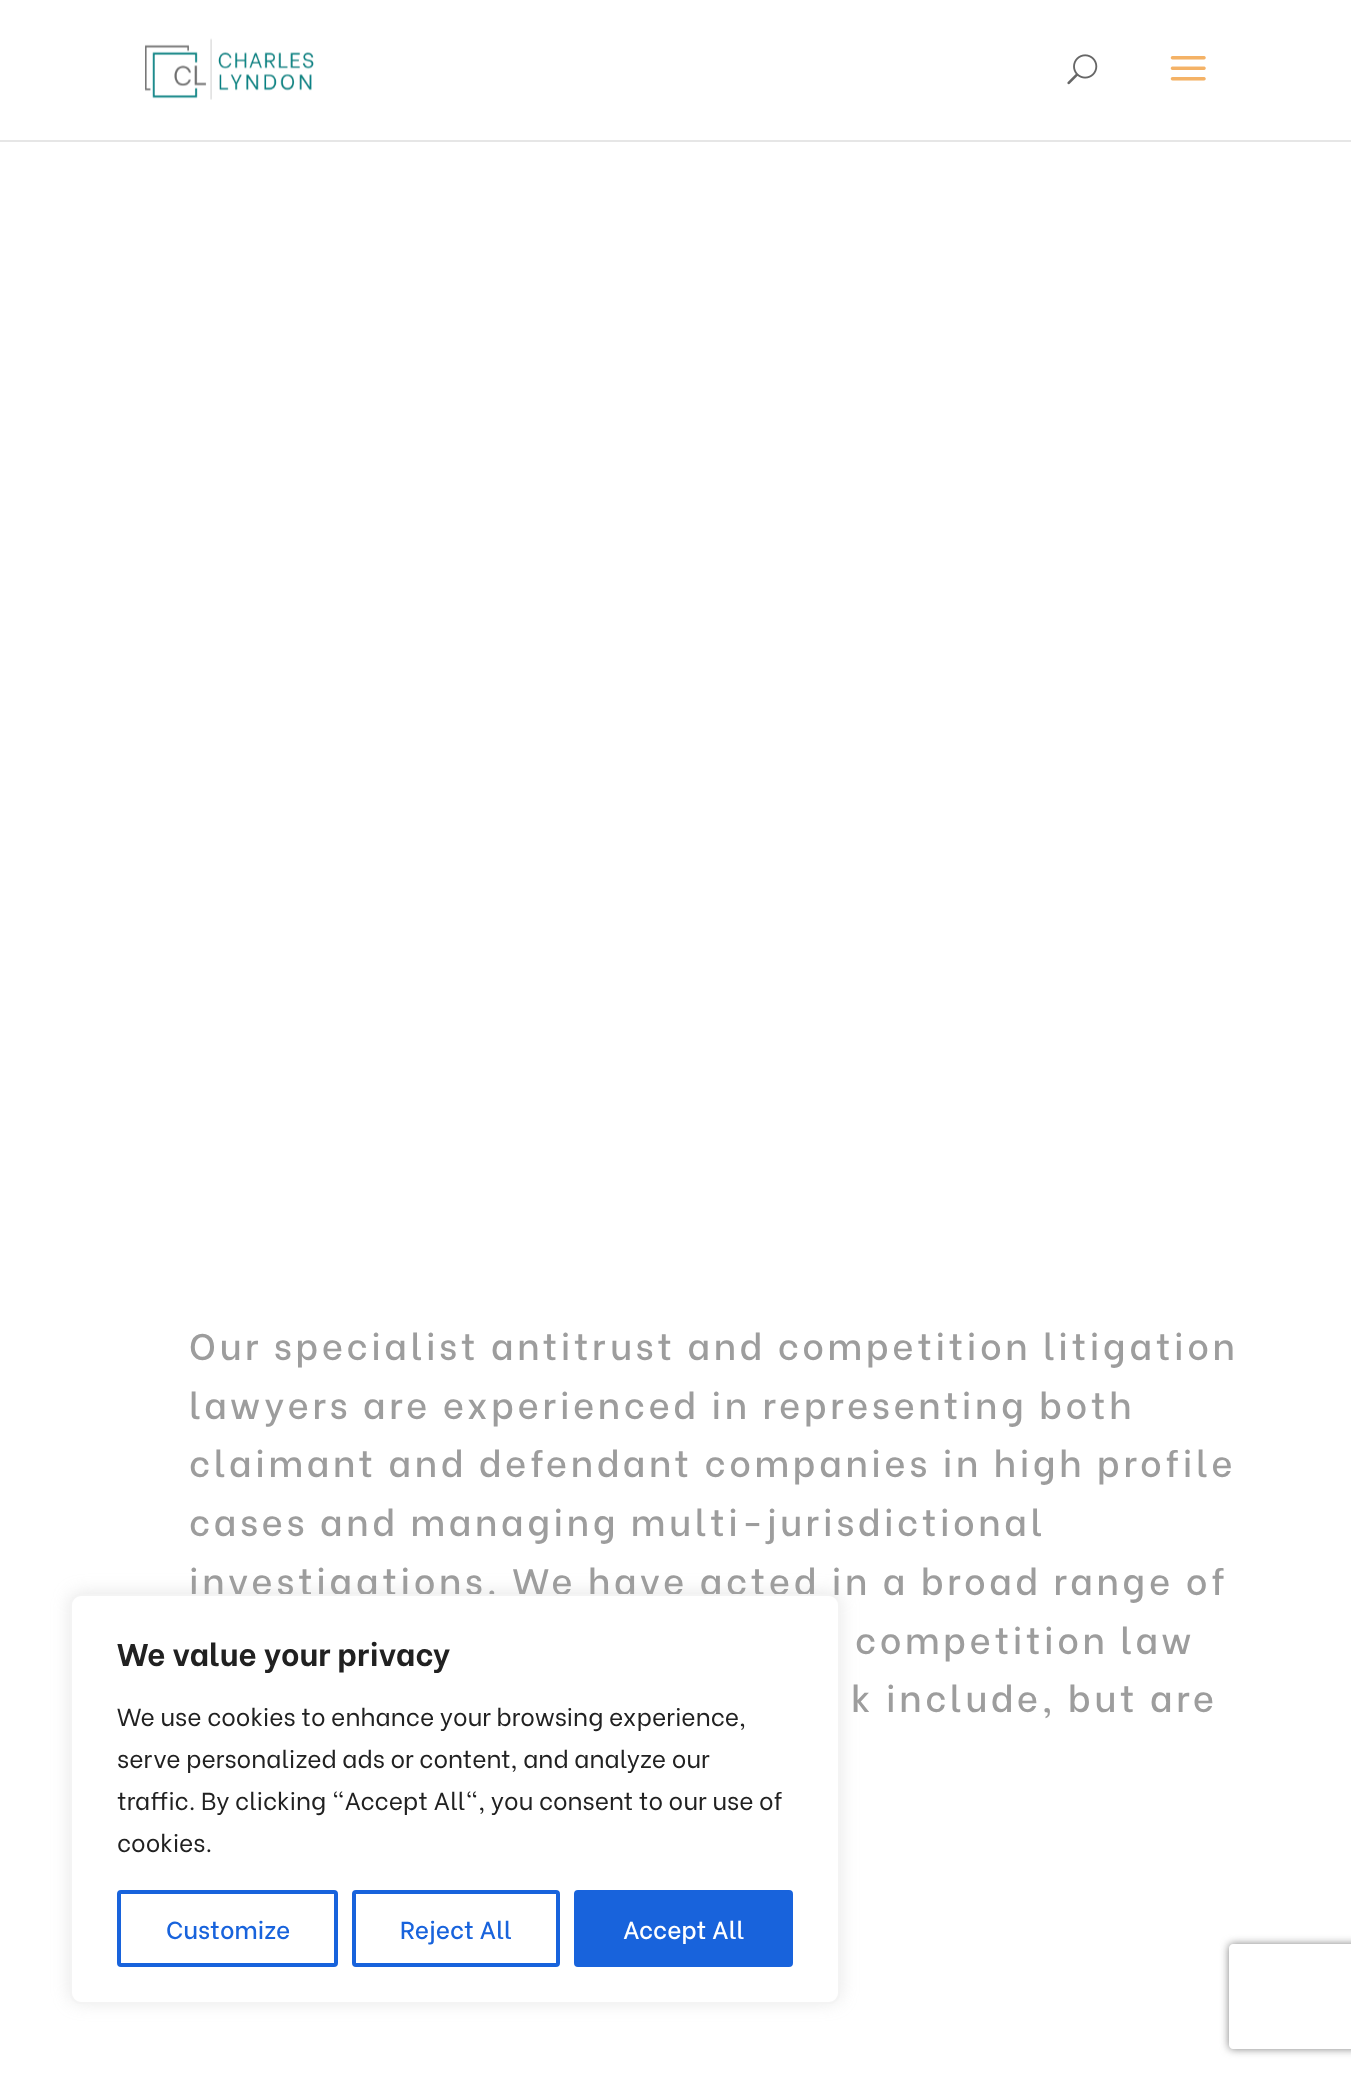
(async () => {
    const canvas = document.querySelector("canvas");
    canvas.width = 1351;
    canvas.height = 2073;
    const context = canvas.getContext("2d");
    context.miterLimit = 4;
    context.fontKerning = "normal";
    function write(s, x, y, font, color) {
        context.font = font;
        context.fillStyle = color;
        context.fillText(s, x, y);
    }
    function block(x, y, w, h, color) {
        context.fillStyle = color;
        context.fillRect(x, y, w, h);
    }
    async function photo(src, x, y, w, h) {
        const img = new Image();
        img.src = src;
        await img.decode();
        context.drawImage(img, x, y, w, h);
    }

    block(0, 0, 1351, 2073, "rgb(255, 255, 255)");
    block(0, 140, 1351, 2, "rgb(230, 230, 230)");
    await photo("media/1.png", 145, 38, 169, 62);
    await photo("media/2.png", 1067, 54, 31, 31);
    await photo("media/3.png", 1170, 56, 36, 25);
    context.letterSpacing = "3.5px";
    write("Our specialist antitrust and competition litigation", 189, 1360, "500 36.75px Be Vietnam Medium", "rgb(157, 157, 157)");
    write("lawyers are experienced in representing both", 189, 1419, "500 36.75px Be Vietnam Medium", "rgb(157, 157, 157)");
    write("claimant and defendant companies in high profile", 189, 1477, "500 36.75px Be Vietnam Medium", "rgb(157, 157, 157)");
    write("cases and managing multi-jurisdictional", 189, 1536, "500 36.75px Be Vietnam Medium", "rgb(157, 157, 157)");
    write("investigations. We have acted in a broad range of", 189, 1595, "500 36.75px Be Vietnam Medium", "rgb(157, 157, 157)");
    write("competition law", 855, 1654, "500 36.75px Be Vietnam Medium", "rgb(157, 157, 157)");
    write("k include, but are", 851, 1712, "500 36.75px Be Vietnam Medium", "rgb(157, 157, 157)");
    context.fillStyle = "rgba(172, 171, 171, 0.3)";
    context.filter = "blur(9px)";
    context.beginPath();
    context.roundRect(70, 1593, 770, 409, 11);
    context.fill();
    context.filter = "none";
    context.fillStyle = "rgb(255, 255, 255)";
    context.beginPath();
    context.roundRect(71, 1595, 768, 408, 10);
    context.fill();
    context.strokeStyle = "rgb(244, 244, 244)";
    context.lineWidth = 2;
    context.stroke();
    context.letterSpacing = "0px";
    write("We value your privacy", 117, 1666, "bold 31.5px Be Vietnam", "rgb(33, 33, 33)");
    write("We use cookies to enhance your browsing experience,", 117, 1726, "24.5px Be Vietnam", "rgb(33, 33, 33)");
    write("serve personalized ads or content, and analyze our", 117, 1768, "24.5px Be Vietnam", "rgb(33, 33, 33)");
    write("traffic. By clicking \"Accept All\", you consent to our use of", 117, 1810, "24.5px Be Vietnam", "rgb(33, 33, 33)");
    write("cookies.", 117, 1852, "24.5px Be Vietnam", "rgb(33, 33, 33)");
    context.beginPath();
    context.roundRect(119, 1892, 217, 73, 2);
    context.strokeStyle = "rgb(24, 99, 220)";
    context.lineWidth = 4;
    context.stroke();
    write("Customize", 166, 1939, "500 24.5px Be Vietnam Medium", "rgb(24, 99, 220)");
    context.beginPath();
    context.roundRect(354, 1892, 204, 73, 2);
    context.stroke();
    write("Reject All", 400, 1939, "500 24.5px Be Vietnam Medium", "rgb(24, 99, 220)");
    context.beginPath();
    context.roundRect(576, 1892, 215, 73, 2);
    context.fill();
    context.stroke();
    write("Accept All", 623, 1939, "500 24.5px Be Vietnam Medium", "rgb(255, 255, 255)");
    context.save();
    context.beginPath();
    context.moveTo(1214, 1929);
    context.lineTo(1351, 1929);
    context.lineTo(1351, 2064);
    context.lineTo(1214, 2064);
    context.closePath();
    context.moveTo(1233, 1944);
    context.lineTo(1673, 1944);
    context.bezierCurveTo(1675, 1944, 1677, 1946, 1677, 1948);
    context.lineTo(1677, 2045);
    context.bezierCurveTo(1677, 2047, 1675, 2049, 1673, 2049);
    context.lineTo(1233, 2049);
    context.bezierCurveTo(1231, 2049, 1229, 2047, 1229, 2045);
    context.lineTo(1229, 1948);
    context.bezierCurveTo(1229, 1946, 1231, 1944, 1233, 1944);
    context.closePath();
    context.clip("evenodd");
    context.fillStyle = "rgb(128, 128, 128)";
    context.filter = "blur(4.5px)";
    context.beginPath();
    context.roundRect(1229, 1944, 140, 105, 4);
    context.fill();
    context.filter = "none";
    context.restore();
})();
